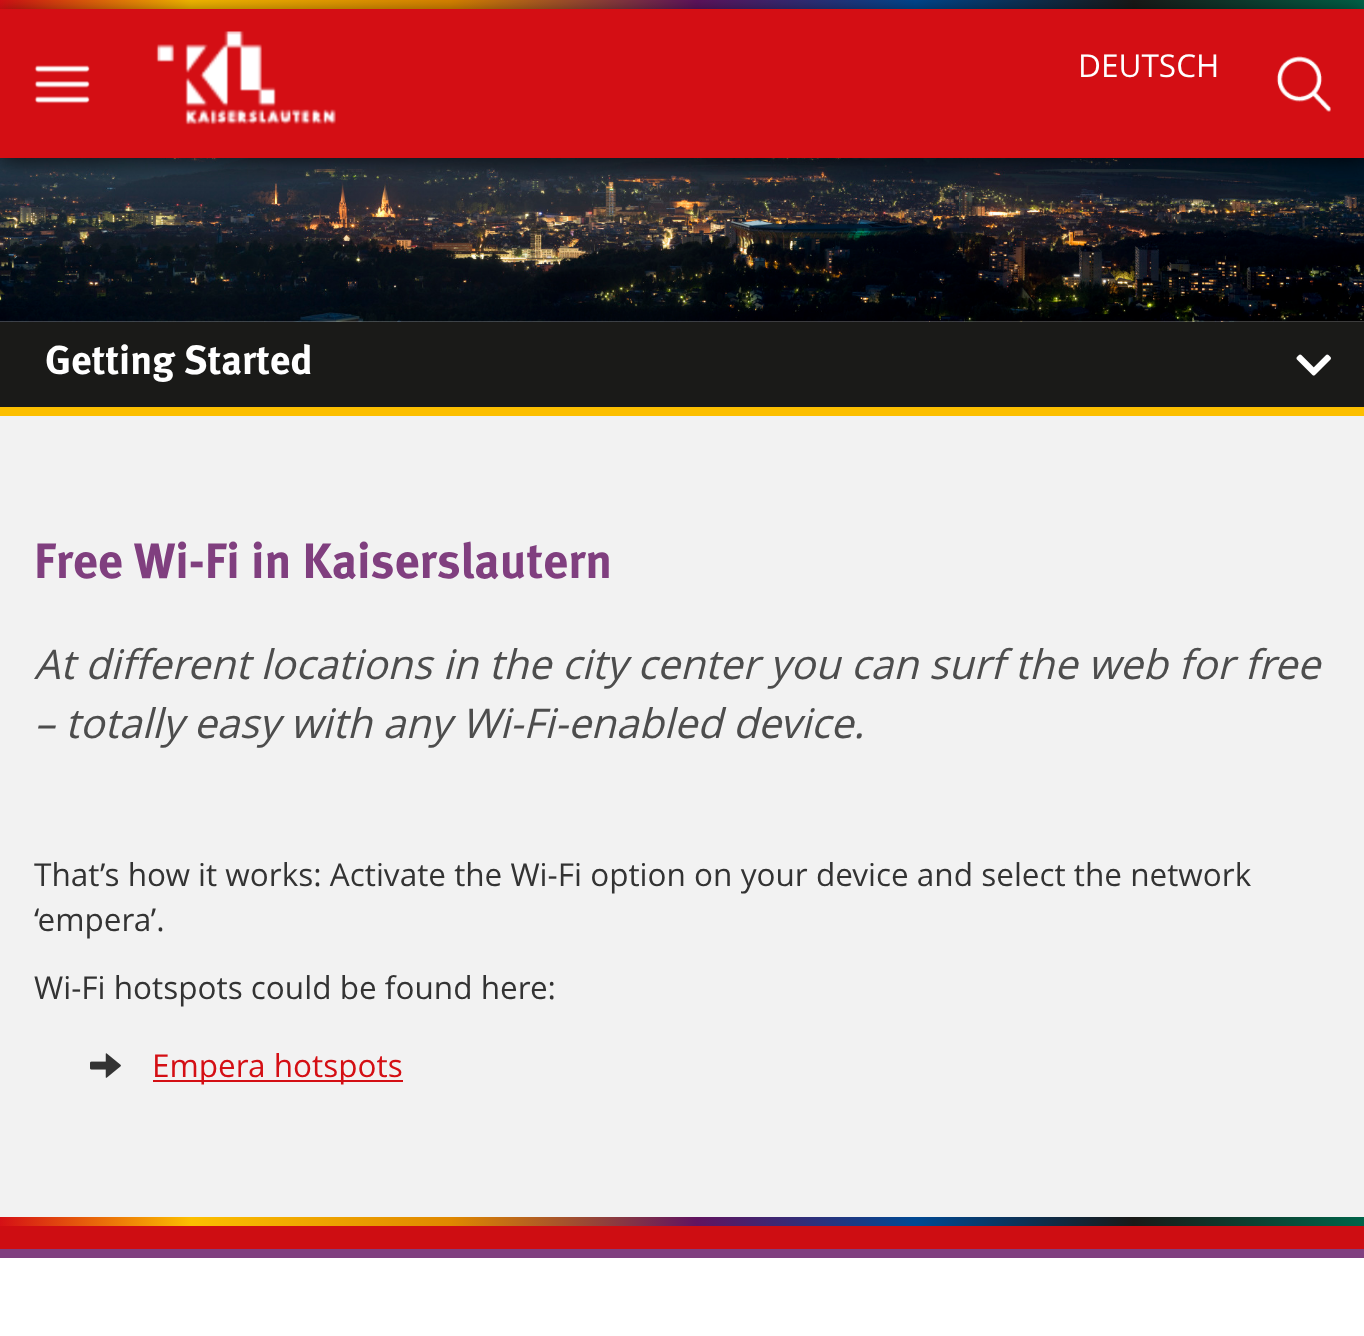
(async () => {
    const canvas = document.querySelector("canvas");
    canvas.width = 1364;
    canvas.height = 1336;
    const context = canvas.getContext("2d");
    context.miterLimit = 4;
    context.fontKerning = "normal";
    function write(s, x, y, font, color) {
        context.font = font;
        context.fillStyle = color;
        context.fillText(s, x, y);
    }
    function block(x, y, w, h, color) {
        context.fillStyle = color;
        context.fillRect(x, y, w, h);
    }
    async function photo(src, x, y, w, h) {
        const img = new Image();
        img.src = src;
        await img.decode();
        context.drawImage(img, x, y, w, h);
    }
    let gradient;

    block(0, 0, 1364, 1336, "rgb(242, 242, 242)");
    gradient = context.createLinearGradient(0, 4.5, 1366, 4.5);
    gradient.addColorStop(0, "rgb(213, 16, 21)");
    gradient.addColorStop(0.14, "rgb(252, 191, 0)");
    gradient.addColorStop(0.33, "rgb(224, 136, 0)");
    gradient.addColorStop(0.51, "rgb(97, 20, 96)");
    gradient.addColorStop(0.67, "rgb(0, 73, 147)");
    gradient.addColorStop(0.83, "rgb(26, 26, 24)");
    gradient.addColorStop(1, "rgb(0, 101, 74)");
    context.fillStyle = gradient;
    context.fillRect(0, 0, 1364, 9);
    await photo("media/4.png", 0, 158, 1364, 164);
    context.fillStyle = "rgba(0, 0, 0, 0.7)";
    context.filter = "blur(11px)";
    context.beginPath();
    context.rect(0, 14, 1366, 148);
    context.fill();
    context.filter = "none";
    block(0, 9, 1364, 149, "rgb(212, 14, 20)");
    await photo("media/1.png", 34, 65, 56, 39);
    await photo("media/2.png", 156, 31, 180, 94);
    write("DEUTSCH", 1078, 77, "31.5px Open Sans", "rgb(255, 255, 255)");
    await photo("media/3.png", 1276, 56, 55, 56);
    block(0, 322, 1364, 85, "rgb(26, 26, 24)");
    write("Getting Started", 45, 374, "bold 40.5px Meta", "rgb(255, 255, 255)");
    await photo("media/5.png", 1296, 354, 35, 22);
    block(0, 407, 1364, 9, "rgb(252, 191, 0)");
    write("Free Wi-Fi in Kaiserslautern", 34, 578, "bold 49.5px Meta", "rgb(128, 63, 127)");
    write("At different locations in the city center you can surf the web for free", 34, 679, "italic 40.95px Open Sans", "rgb(77, 77, 77)");
    write("– totally easy with any Wi-Fi-enabled device.", 34, 738, "italic 40.95px Open Sans", "rgb(77, 77, 77)");
    write("That’s how it works: Activate the Wi-Fi option on your device and select the network", 34, 886, "31.5px Open Sans", "rgb(51, 51, 51)");
    write("‘empera’.", 34, 931, "31.5px Open Sans", "rgb(51, 51, 51)");
    write("Wi-Fi hotspots could be found here:", 34, 999, "31.5px Open Sans", "rgb(51, 51, 51)");
    await photo("media/6.png", 90, 1053, 31, 25);
    block(153, 1080, 250, 2, "rgb(212, 15, 20)");
    write("Empera hotspots", 152, 1077, "31.5px Open Sans", "rgb(212, 15, 20)");
    gradient = context.createLinearGradient(0, 1222, 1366, 1222);
    gradient.addColorStop(0, "rgb(213, 16, 21)");
    gradient.addColorStop(0.14, "rgb(252, 191, 0)");
    gradient.addColorStop(0.33, "rgb(224, 136, 0)");
    gradient.addColorStop(0.51, "rgb(97, 20, 96)");
    gradient.addColorStop(0.67, "rgb(0, 73, 147)");
    gradient.addColorStop(0.83, "rgb(26, 26, 24)");
    gradient.addColorStop(1, "rgb(0, 101, 74)");
    context.fillStyle = gradient;
    context.fillRect(0, 1217, 1364, 9);
    block(0, 1226, 1364, 23, "rgb(206, 13, 18)");
    block(0, 1258, 1364, 78, "rgb(255, 255, 255)");
    block(0, 1249, 1364, 9, "rgb(128, 63, 127)");
})();
